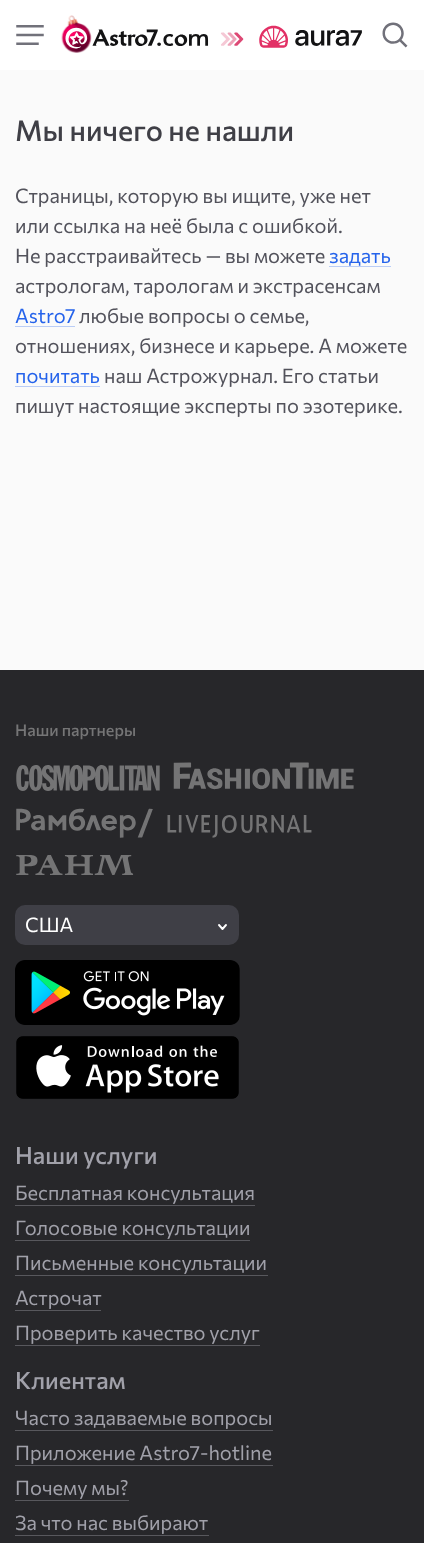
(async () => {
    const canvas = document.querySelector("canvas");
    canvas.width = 424;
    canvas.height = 1543;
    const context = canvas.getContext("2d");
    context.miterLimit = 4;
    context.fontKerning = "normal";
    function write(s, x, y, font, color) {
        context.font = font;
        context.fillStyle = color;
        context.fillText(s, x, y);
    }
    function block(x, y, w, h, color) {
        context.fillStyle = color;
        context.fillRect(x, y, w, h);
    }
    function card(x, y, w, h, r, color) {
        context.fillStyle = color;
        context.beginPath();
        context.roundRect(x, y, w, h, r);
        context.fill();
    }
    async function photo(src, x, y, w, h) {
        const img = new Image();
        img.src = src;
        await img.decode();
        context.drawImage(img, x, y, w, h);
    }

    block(0, 0, 424, 1543, "rgb(250, 250, 250)");
    block(0, 0, 424, 70, "rgb(255, 255, 255)");
    await photo("media/1.png", 16, 25, 28, 20);
    await photo("media/2.png", 61, 15, 301, 38);
    await photo("media/3.png", 382, 22, 26, 26);
    write("Мы ничего не нашли", 15, 141, "100 28.75px Commissioner", "rgb(63, 63, 70)");
    write("Страницы, которую вы ищите, уже нет", 15, 203, "100 20px 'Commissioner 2'", "rgb(82, 82, 91)");
    write("или ссылка на неё была с ошибкой.", 15, 233, "100 20px 'Commissioner 2'", "rgb(82, 82, 91)");
    write("Не расстраивайтесь — вы можете", 15, 263, "100 20px 'Commissioner 2'", "rgb(82, 82, 91)");
    write("задать", 329, 263, "100 20px 'Commissioner 2'", "rgb(37, 99, 235)");
    block(329, 266, 62, 1, "rgb(186, 205, 246)");
    write("астрологам, тарологам и экстрасенсам", 15, 293, "100 20px 'Commissioner 2'", "rgb(82, 82, 91)");
    write("Astro7", 15, 323, "100 20px 'Commissioner 2'", "rgb(37, 99, 235)");
    block(15, 326, 60, 1, "rgb(186, 205, 246)");
    write("любые вопросы о семье,", 79, 323, "100 20px 'Commissioner 2'", "rgb(82, 82, 91)");
    write("отношениях, бизнесе и карьере. А можете", 15, 353, "100 20px 'Commissioner 2'", "rgb(82, 82, 91)");
    write("почитать", 15, 383, "100 20px 'Commissioner 2'", "rgb(37, 99, 235)");
    block(15, 386, 85, 1, "rgb(186, 205, 246)");
    write("наш Астрожурнал. Его статьи", 104, 383, "100 20px 'Commissioner 2'", "rgb(82, 82, 91)");
    write("пишут настоящие эксперты по эзотерике.", 15, 413, "100 20px 'Commissioner 2'", "rgb(82, 82, 91)");
    block(0, 670, 424, 873, "rgb(39, 39, 42)");
    write("Наши партнеры", 15, 736, "100 16.25px Commissioner", "rgb(117, 117, 118)");
    await photo("media/4.png", 16, 765, 144, 26);
    await photo("media/5.png", 173, 762, 181, 28);
    await photo("media/6.png", 16, 808, 137, 30);
    await photo("media/7.png", 167, 815, 145, 23);
    await photo("media/8.png", 16, 855, 118, 20);
    card(15, 905, 224, 40, 10, "rgb(63, 63, 70)");
    write("США", 25, 932, "100 20px 'Commissioner 2'", "rgb(255, 255, 255)");
    context.beginPath();
    context.moveTo(219, 925);
    context.lineTo(222.5, 929);
    context.lineTo(226, 925);
    context.strokeStyle = "rgb(255, 255, 255)";
    context.lineWidth = 1.9;
    context.lineCap = "round";
    context.lineJoin = "round";
    context.stroke();
    await photo("media/9.png", 15, 960, 225, 65);
    await photo("media/10.png", 16, 1036, 223, 63);
    write("Наши услуги", 15, 1164, "100 23.75px Commissioner", "rgb(161, 161, 170)");
    write("Бесплатная консультация", 15, 1200, "100 20px 'Commissioner 2'", "rgb(161, 161, 170)");
    block(15, 1205, 240, 1, "rgb(88, 88, 93)");
    write("Голосовые консультации", 15, 1235, "100 20px 'Commissioner 2'", "rgb(161, 161, 170)");
    block(15, 1240, 235, 1, "rgb(88, 88, 93)");
    write("Письменные консультации", 15, 1270, "100 20px 'Commissioner 2'", "rgb(161, 161, 170)");
    block(15, 1275, 253, 1, "rgb(88, 88, 93)");
    write("Астрочат", 15, 1305, "100 20px 'Commissioner 2'", "rgb(161, 161, 170)");
    block(15, 1310, 86, 1, "rgb(88, 88, 93)");
    write("Проверить качество услуг", 15, 1340, "100 20px 'Commissioner 2'", "rgb(161, 161, 170)");
    block(15, 1345, 245, 1, "rgb(88, 88, 93)");
    write("Клиентам", 15, 1389, "100 23.75px Commissioner", "rgb(161, 161, 170)");
    write("Часто задаваемые вопросы", 15, 1425, "100 20px 'Commissioner 2'", "rgb(161, 161, 170)");
    block(15, 1430, 258, 1, "rgb(88, 88, 93)");
    write("Приложение Astro7-hotline", 15, 1460, "100 20px 'Commissioner 2'", "rgb(161, 161, 170)");
    block(15, 1465, 258, 1, "rgb(88, 88, 93)");
    write("Почему мы?", 15, 1495, "100 20px 'Commissioner 2'", "rgb(161, 161, 170)");
    block(15, 1500, 114, 1, "rgb(88, 88, 93)");
    write("За что нас выбирают", 15, 1530, "100 20px 'Commissioner 2'", "rgb(161, 161, 170)");
    block(15, 1535, 194, 1, "rgb(88, 88, 93)");
})();
